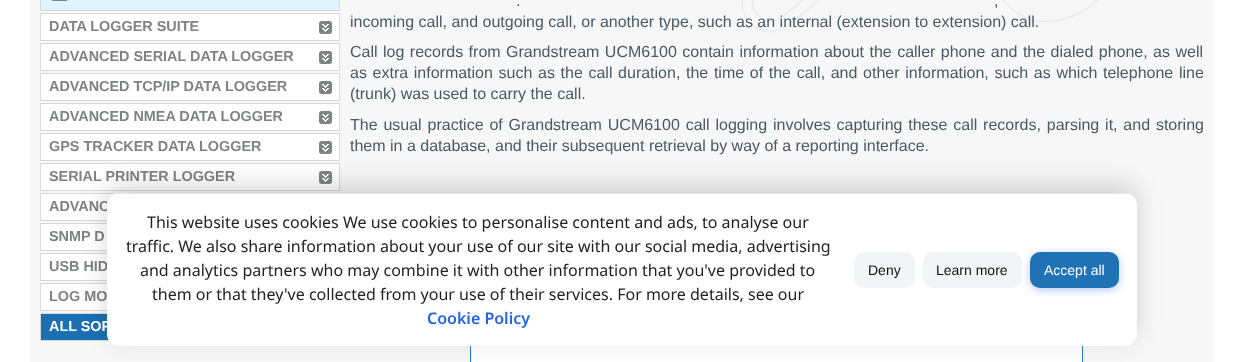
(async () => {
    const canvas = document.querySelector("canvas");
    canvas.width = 1243;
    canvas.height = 362;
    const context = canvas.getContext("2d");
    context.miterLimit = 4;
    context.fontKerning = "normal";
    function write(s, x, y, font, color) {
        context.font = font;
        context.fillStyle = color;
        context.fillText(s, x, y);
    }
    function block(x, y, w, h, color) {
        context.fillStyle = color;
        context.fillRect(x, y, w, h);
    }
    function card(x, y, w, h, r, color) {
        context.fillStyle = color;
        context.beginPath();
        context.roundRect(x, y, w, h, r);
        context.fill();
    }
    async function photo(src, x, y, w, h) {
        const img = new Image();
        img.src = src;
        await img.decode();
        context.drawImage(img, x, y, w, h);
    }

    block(0, 0, 1243, 362, "rgb(255, 255, 255)");
    block(30, 0, 1183, 362, "rgb(247, 247, 247)");
    context.fillStyle = "rgb(224, 244, 255)";
    context.beginPath();
    context.rect(40.5, -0.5, 299, 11);
    context.fill();
    context.strokeStyle = "rgb(217, 217, 217)";
    context.stroke();
    await photo("media/1.png", 51, 0, 17, 1);
    context.strokeRect(40.5, 13.5, 299, 27);
    block(41, 14, 298, 26, "rgb(255, 255, 255)");
    await photo("media/2.png", 319, 21, 13, 13);
    write("DATA LOGGER SUITE", 49, 31, "bold 14.4px Liberation Sans", "rgb(128, 130, 133)");
    context.strokeRect(40.5, 43.5, 299, 27);
    block(41, 44, 298, 26, "rgb(255, 255, 255)");
    await photo("media/2.png", 319, 51, 13, 13);
    write("ADVANCED SERIAL DATA LOGGER", 49, 61, "bold 14.4px Liberation Sans", "rgb(128, 130, 133)");
    context.strokeRect(40.5, 73.5, 299, 27);
    block(41, 74, 298, 26, "rgb(255, 255, 255)");
    await photo("media/2.png", 319, 81, 13, 13);
    write("ADVANCED TCP/IP DATA LOGGER", 49, 91, "bold 14.4px Liberation Sans", "rgb(128, 130, 133)");
    context.strokeRect(40.5, 103.5, 299, 27);
    block(41, 104, 298, 26, "rgb(255, 255, 255)");
    await photo("media/2.png", 319, 111, 13, 13);
    write("ADVANCED NMEA DATA LOGGER", 49, 121, "bold 14.4px Liberation Sans", "rgb(128, 130, 133)");
    context.strokeRect(40.5, 133.5, 299, 27);
    block(41, 134, 298, 26, "rgb(255, 255, 255)");
    await photo("media/2.png", 319, 141, 13, 13);
    write("GPS TRACKER DATA LOGGER", 49, 151, "bold 14.4px Liberation Sans", "rgb(128, 130, 133)");
    context.strokeRect(40.5, 163.5, 299, 27);
    block(41, 164, 298, 26, "rgb(255, 255, 255)");
    await photo("media/2.png", 319, 171, 13, 13);
    write("SERIAL PRINTER LOGGER", 49, 181, "bold 14.4px Liberation Sans", "rgb(128, 130, 133)");
    context.strokeRect(40.5, 193.5, 299, 27);
    block(41, 194, 74, 26, "rgb(255, 255, 255)");
    write("ADVANC", 49, 211, "bold 14.4px Liberation Sans", "rgb(128, 130, 133)");
    context.strokeRect(40.5, 223.5, 299, 27);
    block(41, 224, 66, 26, "rgb(255, 255, 255)");
    write("SNMP D", 49, 241, "bold 14.4px Liberation Sans", "rgb(128, 130, 133)");
    context.strokeRect(40.5, 253.5, 299, 27);
    block(41, 254, 66, 26, "rgb(255, 255, 255)");
    write("USB HID", 49, 271, "bold 14.4px Liberation Sans", "rgb(128, 130, 133)");
    context.strokeRect(40.5, 283.5, 299, 27);
    block(41, 284, 66, 26, "rgb(255, 255, 255)");
    write("LOG MO", 49, 301, "bold 14.4px Liberation Sans", "rgb(128, 130, 133)");
    context.strokeRect(40.5, 313.5, 299, 27);
    block(41, 314, 68, 26, "rgb(28, 112, 177)");
    write("ALL SOF", 49, 331, "bold 14.4px Liberation Sans", "rgb(255, 255, 255)");
    await photo("media/3.png", 741, 0, 357, 33);
    context.wordSpacing = "2px";
    write(".", 516, 6, "16px Liberation Sans", "rgb(73, 90, 101)");
    write(",", 994, 6, "16px Liberation Sans", "rgb(73, 90, 101)");
    context.wordSpacing = "0px";
    write("incoming call, and outgoing call, or another type, such as an internal (extension to extension) call.", 350, 27, "16px Liberation Sans", "rgb(73, 90, 101)");
    context.wordSpacing = "1px";
    write("Call log records from Grandstream UCM6100 contain information about the caller phone and the dialed phone, as well", 350, 57, "16px Liberation Sans", "rgb(73, 90, 101)");
    context.wordSpacing = "1.2px";
    write("as extra information such as the call duration, the time of the call, and other information, such as which telephone line", 350, 78, "16px Liberation Sans", "rgb(73, 90, 101)");
    context.wordSpacing = "0px";
    write("(trunk) was used to carry the call.", 350, 99, "16px Liberation Sans", "rgb(73, 90, 101)");
    context.wordSpacing = "1.4px";
    write("The usual practice of Grandstream UCM6100 call logging involves capturing these call records, parsing it, and storing", 350, 130, "16px Liberation Sans", "rgb(73, 90, 101)");
    context.wordSpacing = "0px";
    write("them in a database, and their subsequent retrieval by way of a reporting interface.", 350, 151, "16px Liberation Sans", "rgb(73, 90, 101)");
    await photo("media/4.png", 470, 346, 613, 16);
    context.fillStyle = "rgba(0, 0, 0, 0.15)";
    context.filter = "blur(12px)";
    context.beginPath();
    context.roundRect(107, 185, 1030, 153, 12);
    context.fill();
    context.filter = "none";
    card(107, 193, 1030, 153, 12, "rgb(255, 255, 255)");
    block(113, 193, 1018, 1, "rgb(229, 231, 235)");
    write("This website uses cookies We use cookies to personalise content and ads, to analyse our", 147, 228, "16px Noto Sans", "rgb(34, 34, 34)");
    write("traffic. We also share information about your use of our site with our social media, advertising", 126, 252, "16px Noto Sans", "rgb(34, 34, 34)");
    write("and analytics partners who may combine it with other information that you've provided to", 140, 276, "16px Noto Sans", "rgb(34, 34, 34)");
    write("them or that they've collected from your use of their services. For more details, see our", 152, 300, "16px Noto Sans", "rgb(34, 34, 34)");
    write("Cookie Policy", 427, 324, "600 16px Noto Sans", "rgb(37, 99, 235)");
    card(854, 252, 61, 36, 10, "rgb(243, 244, 246)");
    write("Deny", 868, 275, "14px Liberation Sans", "rgb(17, 17, 17)");
    card(923, 252, 99, 36, 10, "rgb(243, 244, 246)");
    write("Learn more", 936, 275, "14px Liberation Sans", "rgb(17, 17, 17)");
    context.fillStyle = "rgba(37, 99, 235, 0.35)";
    context.filter = "blur(4px)";
    context.beginPath();
    context.roundRect(1030, 254, 89, 36, 10);
    context.fill();
    context.filter = "none";
    card(1030, 252, 89, 36, 10, "rgb(31, 115, 180)");
    write("Accept all", 1044, 275, "14px Liberation Sans", "rgb(255, 255, 255)");
})();
